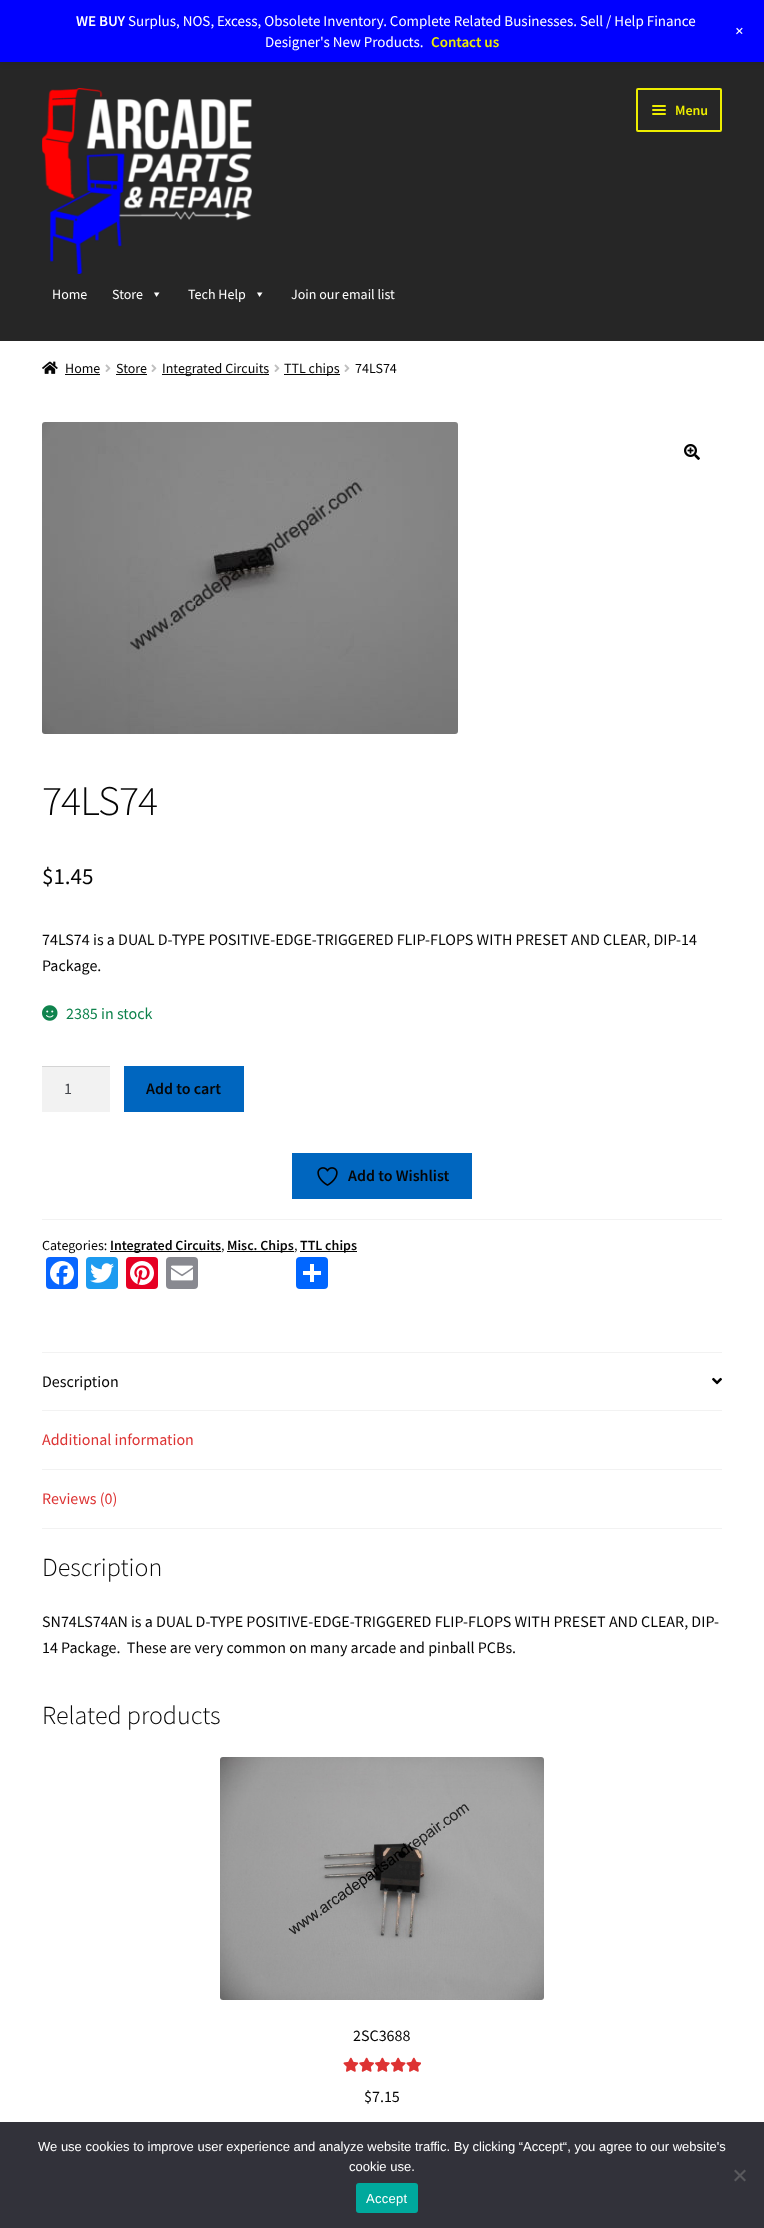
(async () => {
    const canvas = document.querySelector("canvas");
    canvas.width = 764;
    canvas.height = 2228;
    const context = canvas.getContext("2d");
    context.miterLimit = 4;
    context.fontKerning = "normal";
    function write(s, x, y, font, color) {
        context.font = font;
        context.fillStyle = color;
        context.fillText(s, x, y);
    }
    function block(x, y, w, h, color) {
        context.fillStyle = color;
        context.fillRect(x, y, w, h);
    }
    function card(x, y, w, h, r, color) {
        context.fillStyle = color;
        context.beginPath();
        context.roundRect(x, y, w, h, r);
        context.fill();
    }
    async function photo(src, x, y, w, h) {
        const img = new Image();
        img.src = src;
        await img.decode();
        context.drawImage(img, x, y, w, h);
    }

    block(0, 0, 764, 2228, "rgb(255, 255, 255)");
    block(0, 62, 764, 279, "rgb(38, 38, 38)");
    context.fillStyle = "rgba(0, 0, 0, 0.05)";
    context.filter = "blur(2px)";
    context.beginPath();
    context.rect(0, 3, 764, 62);
    context.fill();
    context.filter = "none";
    block(0, 0, 764, 62, "rgb(0, 0, 255)");
    write("WE BUY", 76, 26, "600 15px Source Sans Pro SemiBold", "rgb(255, 255, 255)");
    write("Surplus, NOS, Excess, Obsolete Inventory. Complete Related Businesses. Sell / Help Finance", 128, 26, "15px Source Sans Pro", "rgb(255, 255, 255)");
    write("Designer's New Products.", 265, 47, "15px Source Sans Pro", "rgb(255, 255, 255)");
    write("Contact us", 431, 47, "600 15px Source Sans Pro SemiBold", "rgb(237, 237, 0)");
    context.font = "18px Source Sans Pro";
    context.fillStyle = "rgb(255, 255, 255)";
    context.save();
    context.translate(732, 32);
    context.rotate(45 * Math.PI / 180);
    context.fillText("+", 0, 0);
    context.restore();
    await photo("media/1.png", 42, 88, 210, 186);
    context.beginPath();
    context.roundRect(637, 89, 84, 42, 1);
    context.strokeStyle = "rgb(237, 237, 0)";
    context.lineWidth = 2;
    context.stroke();
    card(652, 105, 14, 2, 1, "rgb(237, 237, 0)");
    card(652, 109, 14, 2, 1, "rgb(237, 237, 0)");
    write("Menu", 675, 115, "600 14px Source Sans Pro SemiBold", "rgb(237, 237, 0)");
    card(652, 113, 14, 2, 1, "rgb(237, 237, 0)");
    write("Home", 52, 299, "14px Source Sans Pro", "rgb(255, 255, 255)");
    write("Store", 112, 299, "14px Source Sans Pro", "rgb(255, 255, 255)");
    context.beginPath();
    context.moveTo(159.5, 292.5);
    context.lineTo(156.5, 297);
    context.lineTo(154, 292.5);
    context.closePath();
    context.fill();
    write("Tech Help", 188, 299, "14px Source Sans Pro", "rgb(255, 255, 255)");
    context.beginPath();
    context.moveTo(262.5, 292.5);
    context.lineTo(259.5, 297);
    context.lineTo(257, 292.5);
    context.closePath();
    context.fill();
    write("Join our email list", 291, 299, "14px Source Sans Pro", "rgb(255, 255, 255)");
    await photo("media/2.png", 42, 361, 16, 13);
    write("Home", 65, 373, "14px Source Sans Pro", "rgb(5, 5, 5)");
    block(65, 374, 35, 1, "rgb(5, 5, 5)");
    await photo("media/3.png", 105, 364, 6, 8);
    write("Store", 116, 373, "14px Source Sans Pro", "rgb(5, 5, 5)");
    block(116, 374, 31, 1, "rgb(5, 5, 5)");
    await photo("media/3.png", 151, 364, 6, 8);
    block(162, 374, 107, 1, "rgb(5, 5, 5)");
    write("Integrated Circuits", 162, 373, "14px Source Sans Pro", "rgb(5, 5, 5)");
    await photo("media/3.png", 274, 364, 6, 8);
    block(284, 374, 56, 1, "rgb(5, 5, 5)");
    write("TTL chips", 284, 373, "14px Source Sans Pro", "rgb(5, 5, 5)");
    await photo("media/3.png", 344, 364, 6, 8);
    write("74LS74", 355, 373, "14px Source Sans Pro", "rgb(5, 5, 5)");
    await photo("media/4.png", 42, 422, 416, 312);
    await photo("media/5.png", 684, 444, 16, 16);
    context.letterSpacing = "-1px";
    write("74LS74", 42, 815, "300 42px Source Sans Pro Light", "rgb(5, 5, 5)");
    context.letterSpacing = "0px";
    write("$1.45", 42, 884, "23px Source Sans Pro", "rgb(5, 5, 5)");
    write("74LS74 is a DUAL D-TYPE POSITIVE-EDGE-TRIGGERED FLIP-FLOPS WITH PRESET AND CLEAR, DIP-14", 42, 945, "16px Source Sans Pro", "rgb(5, 5, 5)");
    write("Package.", 42, 971, "16px Source Sans Pro", "rgb(5, 5, 5)");
    await photo("media/6.png", 42, 1005, 16, 16);
    write("2385 in stock", 66, 1019, "16px Source Sans Pro", "rgb(15, 131, 77)");
    block(42, 1067, 68, 45, "rgb(242, 242, 242)");
    block(42, 1066, 68, 1, "rgb(212, 212, 212)");
    write("1", 64, 1094, "16px Source Sans Pro", "rgb(67, 69, 75)");
    block(124, 1066, 120, 46, "rgb(0, 102, 191)");
    write("Add to cart", 146, 1094, "600 16px Source Sans Pro SemiBold", "rgb(5, 5, 5)");
    block(292, 1153, 180, 46, "rgb(0, 102, 191)");
    await photo("media/7.png", 317, 1167, 21, 19);
    write("Add to Wishlist", 348, 1181, "600 16px Source Sans Pro SemiBold", "rgb(5, 5, 5)");
    block(42, 1219, 680, 1, "rgb(242, 242, 242)");
    write("Categories:", 42, 1250, "14px Source Sans Pro", "rgb(5, 5, 5)");
    block(110, 1251, 111, 1, "rgb(5, 5, 5)");
    write("Integrated Circuits", 110, 1250, "600 14px Source Sans Pro SemiBold", "rgb(5, 5, 5)");
    write(",", 221, 1250, "14px Source Sans Pro", "rgb(5, 5, 5)");
    block(227, 1251, 67, 1, "rgb(5, 5, 5)");
    write("Misc. Chips", 227, 1250, "600 14px Source Sans Pro SemiBold", "rgb(5, 5, 5)");
    write(",", 294, 1250, "14px Source Sans Pro", "rgb(5, 5, 5)");
    block(300, 1251, 57, 1, "rgb(5, 5, 5)");
    write("TTL chips", 300, 1250, "600 14px Source Sans Pro SemiBold", "rgb(5, 5, 5)");
    card(46, 1257, 32, 32, 4, "rgb(8, 102, 255)");
    await photo("media/8.png", 50, 1261, 24, 24);
    card(86, 1257, 32, 32, 4, "rgb(29, 155, 240)");
    await photo("media/9.png", 90, 1263, 24, 20);
    card(126, 1257, 32, 32, 4, "rgb(230, 0, 35)");
    await photo("media/10.png", 130, 1261, 24, 24);
    card(166, 1257, 32, 32, 4, "rgb(136, 137, 144)");
    await photo("media/11.png", 171, 1265, 22, 16);
    card(296, 1257, 32, 32, 4, "rgb(1, 102, 255)");
    block(310, 1264, 4, 18, "rgb(255, 255, 255)");
    block(303, 1271, 18, 4, "rgb(255, 255, 255)");
    block(42, 1352, 680, 1, "rgb(242, 242, 242)");
    block(42, 1410, 680, 1, "rgb(242, 242, 242)");
    write("Description", 42, 1387, "16px Source Sans Pro", "rgb(5, 5, 5)");
    await photo("media/12.png", 712, 1377, 10, 8);
    block(42, 1469, 680, 1, "rgb(242, 242, 242)");
    write("Additional information", 42, 1445, "16px Source Sans Pro", "rgb(221, 51, 51)");
    block(42, 1528, 680, 1, "rgb(242, 242, 242)");
    write("Reviews (0)", 42, 1504, "16px Source Sans Pro", "rgb(221, 51, 51)");
    write("Description", 42, 1576, "300 26px Source Sans Pro Light", "rgb(5, 5, 5)");
    write("SN74LS74AN is a DUAL D-TYPE POSITIVE-EDGE-TRIGGERED FLIP-FLOPS WITH PRESET AND CLEAR, DIP-", 42, 1627, "16px Source Sans Pro", "rgb(5, 5, 5)");
    write("14 Package.  These are very common on many arcade and pinball PCBs.", 42, 1653, "16px Source Sans Pro", "rgb(5, 5, 5)");
    write("Related products", 42, 1724, "300 26px Source Sans Pro Light", "rgb(5, 5, 5)");
    await photo("media/13.png", 220, 1757, 324, 243);
    write("2SC3688", 353, 2041, "16px Source Sans Pro", "rgb(5, 5, 5)");
    await photo("media/14.png", 343, 2057, 78, 15);
    await photo("media/15.png", 343, 2057, 78, 15);
    write("$7.15", 364, 2102, "16px Source Sans Pro", "rgb(5, 5, 5)");
    block(0, 2122, 764, 106, "rgb(50, 50, 58)");
    write("We use cookies to improve user experience and analyze website traffic. By clicking “Accept“, you agree to our website's", 38, 2151, "13px Liberation Sans", "rgb(255, 255, 255)");
    write("cookie use.", 349, 2171, "13px Liberation Sans", "rgb(255, 255, 255)");
    context.fillStyle = "rgb(89, 89, 93)";
    context.beginPath();
    context.moveTo(744.5, 2169.5);
    context.lineTo(746, 2171);
    context.lineTo(735.5, 2181.5);
    context.lineTo(734, 2180);
    context.closePath();
    context.fill();
    context.beginPath();
    context.moveTo(734, 2171);
    context.lineTo(735.5, 2169.5);
    context.lineTo(746, 2180);
    context.lineTo(744.5, 2181.5);
    context.closePath();
    context.fill();
    card(356, 2183, 62, 30, 3, "rgb(0, 169, 157)");
    context.letterSpacing = "0.25px";
    write("Accept", 366, 2203, "13px Liberation Sans", "rgb(255, 255, 255)");
})();
